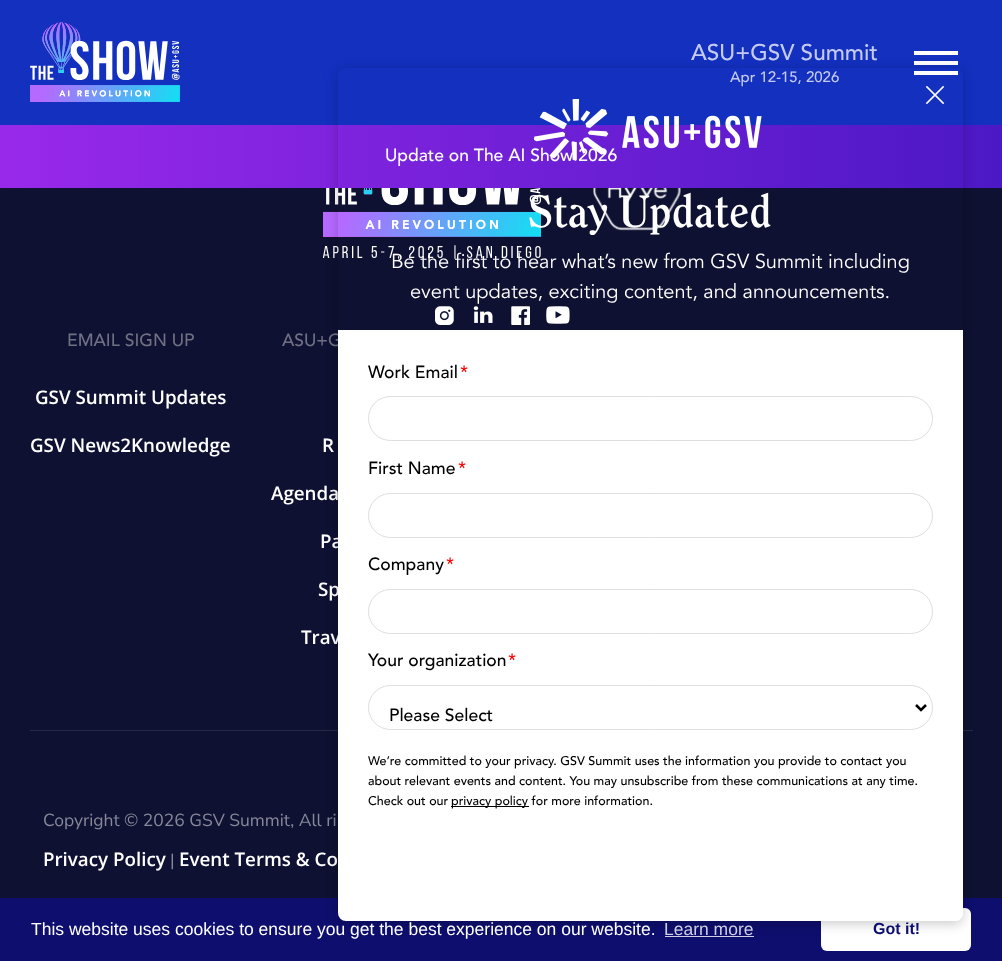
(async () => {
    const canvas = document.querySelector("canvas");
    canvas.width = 1002;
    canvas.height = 961;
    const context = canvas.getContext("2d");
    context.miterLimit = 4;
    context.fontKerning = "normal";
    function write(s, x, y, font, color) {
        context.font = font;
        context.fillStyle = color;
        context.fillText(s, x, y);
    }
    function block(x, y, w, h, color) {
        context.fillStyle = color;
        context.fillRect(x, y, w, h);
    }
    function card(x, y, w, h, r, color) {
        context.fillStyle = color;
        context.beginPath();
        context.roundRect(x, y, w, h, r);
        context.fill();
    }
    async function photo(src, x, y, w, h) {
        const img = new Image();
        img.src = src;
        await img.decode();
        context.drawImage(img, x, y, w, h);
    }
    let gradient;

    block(0, 0, 1002, 961, "rgb(15, 17, 50)");
    block(0, 0, 1002, 125, "rgb(19, 48, 191)");
    await photo("media/1.png", 30, 22, 150, 80);
    write("ASU+GSV Summit", 691, 60, "500 22.5px Avenir", "rgb(196, 203, 239)");
    write("Apr 12-15, 2026", 730, 82, "500 15px Avenir", "rgb(196, 203, 239)");
    block(914, 51, 44, 4, "rgb(255, 255, 255)");
    block(914, 61, 44, 4, "rgb(255, 255, 255)");
    block(914, 71, 44, 4, "rgb(255, 255, 255)");
    gradient = context.createLinearGradient(0, 156, 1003, 156);
    gradient.addColorStop(0, "rgb(153, 41, 234)");
    gradient.addColorStop(1, "rgb(76, 24, 197)");
    context.fillStyle = gradient;
    context.fillRect(0, 125, 1002, 63);
    write("Update on The AI Show 2026", 385, 161, "500 17.5px Avenir", "rgb(255, 255, 255)");
    await photo("media/2.png", 323, 188, 218, 72);
    await photo("media/3.png", 593, 188, 88, 43);
    await photo("media/4.png", 435, 306, 19, 19);
    await photo("media/5.png", 473, 306, 20, 17);
    await photo("media/6.png", 511, 306, 19, 19);
    await photo("media/7.png", 546, 306, 24, 18);
    write("EMAIL SIGN UP", 67, 346, "500 17.5px Avenir", "rgb(111, 112, 132)");
    write("GSV Summit Updates", 35, 404, "600 18.75px Open Sans", "rgb(255, 255, 255)");
    write("GSV News2Knowledge", 30, 452, "600 18.75px Open Sans", "rgb(255, 255, 255)");
    write("ASU+G", 282, 346, "500 17.5px Avenir", "rgb(111, 112, 132)");
    write("R", 322, 452, "600 18.75px Open Sans", "rgb(255, 255, 255)");
    write("Agenda", 271, 500, "600 18.75px Open Sans", "rgb(255, 255, 255)");
    write("Pa", 320, 548, "600 18.75px Open Sans", "rgb(255, 255, 255)");
    write("Sp", 318, 596, "600 18.75px Open Sans", "rgb(255, 255, 255)");
    write("Trav", 301, 644, "600 18.75px Open Sans", "rgb(255, 255, 255)");
    block(30, 730, 943, 1, "rgb(39, 41, 71)");
    write("Copyright © 2026 GSV Summit, All ri", 43, 826, "17.5px Nunito Sans", "rgb(135, 136, 153)");
    write("Privacy Policy", 43, 866, "600 18.75px Open Sans", "rgb(255, 255, 255)");
    write("|", 170, 866, "17.5px Nunito Sans", "rgb(135, 136, 153)");
    write("Event Terms & Co", 179, 866, "600 18.75px Open Sans", "rgb(255, 255, 255)");
    block(0, 898, 1002, 63, "rgb(14, 14, 110)");
    block(665, 936, 89, 1, "rgb(207, 207, 226)");
    card(821, 908, 150, 43, 6, "rgb(255, 255, 255)");
    context.save();
    context.beginPath();
    context.moveTo(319, 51);
    context.lineTo(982, 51);
    context.lineTo(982, 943);
    context.lineTo(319, 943);
    context.closePath();
    context.moveTo(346, 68);
    context.lineTo(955, 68);
    context.bezierCurveTo(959.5, 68, 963, 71.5, 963, 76);
    context.lineTo(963, 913);
    context.bezierCurveTo(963, 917.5, 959.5, 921, 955, 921);
    context.lineTo(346, 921);
    context.bezierCurveTo(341.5, 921, 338, 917.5, 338, 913);
    context.lineTo(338, 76);
    context.bezierCurveTo(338, 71.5, 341.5, 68, 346, 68);
    context.closePath();
    context.clip("evenodd");
    context.fillStyle = "rgba(0, 0, 0, 0.2)";
    context.filter = "blur(6px)";
    context.beginPath();
    context.roundRect(338, 70, 625, 854, 8);
    context.fill();
    context.filter = "none";
    context.restore();
    await photo("media/8.png", 925, 85, 20, 20);
    await photo("media/9.png", 534, 99, 228, 62);
    write("Stay Updated", 528, 227, "bold 45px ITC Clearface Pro", "rgb(255, 255, 255)");
    write("Be the first to hear what’s new from GSV Summit including", 391, 268, "20px Avenir", "rgb(255, 255, 255)");
    write("event updates, exciting content, and announcements.", 410, 298, "20px Avenir", "rgb(255, 255, 255)");
    context.beginPath();
    context.roundRect(338, 330, 625, 591, [0, 0, 8, 8]);
    context.fill();
    write("Work Email", 368, 378, "500 17.5px Avenir", "rgb(0, 0, 0)");
    write("*", 460, 378, "500 17.5px Avenir", "rgb(255, 0, 0)");
    context.beginPath();
    context.roundRect(368.5, 396.5, 564, 44, 22);
    context.strokeStyle = "rgb(222, 222, 222)";
    context.stroke();
    write("First Name", 368, 474, "500 17.5px Avenir", "rgb(0, 0, 0)");
    write("*", 458, 474, "500 17.5px Avenir", "rgb(255, 0, 0)");
    context.beginPath();
    context.roundRect(368.5, 493.5, 564, 44, 22);
    context.stroke();
    write("Company", 368, 570, "500 17.5px Avenir", "rgb(0, 0, 0)");
    write("*", 446, 570, "500 17.5px Avenir", "rgb(255, 0, 0)");
    context.beginPath();
    context.roundRect(368.5, 589.5, 564, 44, 22);
    context.stroke();
    write("Your organization", 368, 666, "500 17.5px Avenir", "rgb(0, 0, 0)");
    write("*", 508, 666, "500 17.5px Avenir", "rgb(255, 0, 0)");
    context.beginPath();
    context.roundRect(368.5, 685.5, 564, 44, 22);
    context.stroke();
    context.beginPath();
    context.moveTo(916, 705);
    context.lineTo(921, 710);
    context.lineTo(926, 705);
    context.strokeStyle = "rgb(0, 0, 0)";
    context.lineWidth = 2.5;
    context.stroke();
    write("Please Select", 389, 721, "500 17.5px Avenir", "rgb(0, 0, 0)");
    write("We’re committed to your privacy. GSV Summit uses the information you provide to contact you", 368, 765, "500 12.5px Avenir", "rgb(0, 0, 0)");
    write("about relevant events and content. You may unsubscribe from these communications at any time.", 368, 785, "500 12.5px Avenir", "rgb(0, 0, 0)");
    write("Check out our", 368, 805, "500 12.5px Avenir", "rgb(0, 0, 0)");
    block(451, 806, 78, 1, "rgb(0, 0, 0)");
    write("privacy policy for more information.", 451, 805, "500 12.5px Avenir", "rgb(0, 0, 0)");
    write("This website uses cookies to ensure you get the best experience on our website.", 31, 935, "17.5px Liberation Sans", "rgb(255, 255, 255)");
    write("Learn more", 664, 935, "17.5px Liberation Sans", "rgb(207, 207, 226)");
    write("Got it!", 873, 934, "bold 16px Liberation Sans", "rgb(14, 14, 110)");
})();
